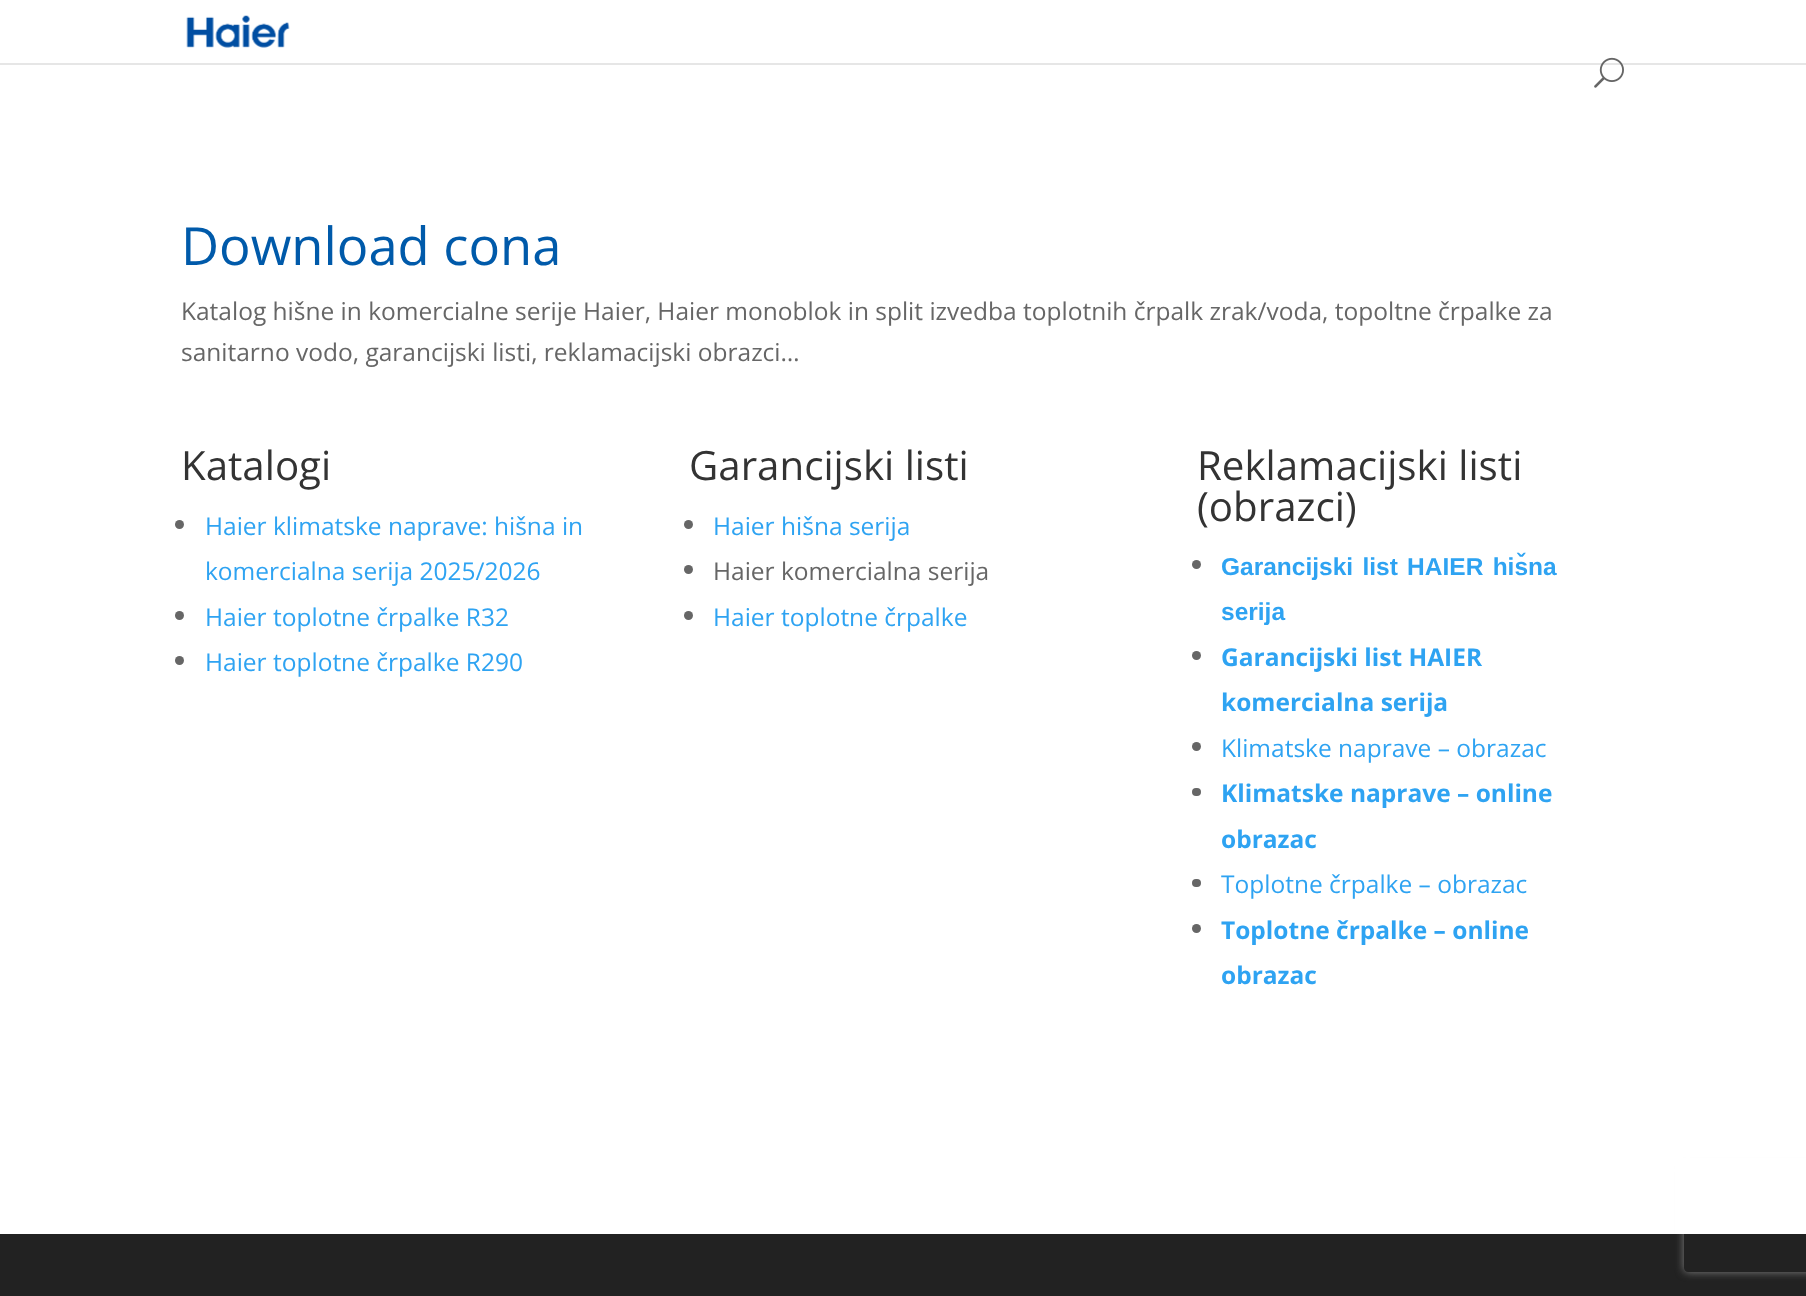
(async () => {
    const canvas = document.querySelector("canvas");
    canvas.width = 1806;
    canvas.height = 1296;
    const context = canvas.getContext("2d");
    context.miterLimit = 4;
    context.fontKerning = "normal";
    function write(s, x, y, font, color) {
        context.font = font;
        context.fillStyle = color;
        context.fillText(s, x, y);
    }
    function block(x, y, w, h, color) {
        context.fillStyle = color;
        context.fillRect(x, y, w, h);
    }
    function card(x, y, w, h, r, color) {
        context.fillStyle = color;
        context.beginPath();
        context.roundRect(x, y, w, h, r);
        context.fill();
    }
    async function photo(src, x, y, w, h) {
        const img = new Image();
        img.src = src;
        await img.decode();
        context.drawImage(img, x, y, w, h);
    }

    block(0, 0, 1806, 1296, "rgb(255, 255, 255)");
    block(0, 63, 1806, 2, "rgb(230, 230, 230)");
    await photo("media/1.png", 186, 15, 104, 33);
    await photo("media/2.png", 1594, 57, 30, 31);
    block(0, 1234, 1806, 62, "rgb(34, 34, 34)");
    context.save();
    context.beginPath();
    context.moveTo(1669, 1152);
    context.lineTo(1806, 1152);
    context.lineTo(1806, 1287);
    context.lineTo(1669, 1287);
    context.closePath();
    context.moveTo(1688, 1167);
    context.lineTo(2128, 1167);
    context.bezierCurveTo(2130, 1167, 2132, 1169, 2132, 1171);
    context.lineTo(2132, 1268);
    context.bezierCurveTo(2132, 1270, 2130, 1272, 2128, 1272);
    context.lineTo(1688, 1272);
    context.bezierCurveTo(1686, 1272, 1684, 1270, 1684, 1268);
    context.lineTo(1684, 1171);
    context.bezierCurveTo(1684, 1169, 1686, 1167, 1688, 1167);
    context.closePath();
    context.clip("evenodd");
    context.fillStyle = "rgb(128, 128, 128)";
    context.filter = "blur(4.5px)";
    context.beginPath();
    context.roundRect(1684, 1167, 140, 105, 4);
    context.fill();
    context.filter = "none";
    context.restore();
    block(1675, 1158, 131, 76, "rgb(255, 255, 255)");
    write("Download cona", 181, 265, "52.5px Open Sans", "rgb(0, 90, 170)");
    write("Katalog hišne in komercialne serije Haier, Haier monoblok in split izvedba toplotnih črpalk zrak/voda, topoltne črpalke za", 181, 320, "24.5px Open Sans", "rgb(102, 102, 102)");
    write("sanitarno vodo, garancijski listi, reklamacijski obrazci…", 181, 361, "24.5px Open Sans", "rgb(102, 102, 102)");
    write("Katalogi", 181, 480, "40.25px Open Sans", "rgb(51, 51, 51)");
    context.fillStyle = "rgb(102, 102, 102)";
    context.beginPath();
    context.arc(179.5, 524.5, 4.5, 0, Math.PI * 2);
    context.fill();
    write("Haier klimatske naprave: hišna in", 205, 535, "24.5px Open Sans", "rgb(46, 163, 242)");
    write("komercialna serija 2025/2026", 205, 580, "24.5px Open Sans", "rgb(46, 163, 242)");
    context.fillStyle = "rgb(102, 102, 102)";
    context.beginPath();
    context.arc(179.5, 615.5, 4.5, 0, Math.PI * 2);
    context.fill();
    write("Haier toplotne črpalke R32", 205, 626, "24.5px Open Sans", "rgb(46, 163, 242)");
    context.fillStyle = "rgb(102, 102, 102)";
    context.beginPath();
    context.arc(179.5, 660.5, 4.5, 0, Math.PI * 2);
    context.fill();
    write("Haier toplotne črpalke R290", 205, 671, "24.5px Open Sans", "rgb(46, 163, 242)");
    write("Garancijski listi", 689, 480, "40.25px Open Sans", "rgb(51, 51, 51)");
    context.fillStyle = "rgb(102, 102, 102)";
    context.beginPath();
    context.arc(688.5, 524.5, 4.5, 0, Math.PI * 2);
    context.fill();
    write("Haier hišna serija", 713, 535, "24.5px Open Sans", "rgb(46, 163, 242)");
    context.fillStyle = "rgb(102, 102, 102)";
    context.beginPath();
    context.arc(688.5, 569.5, 4.5, 0, Math.PI * 2);
    context.fill();
    write("Haier komercialna serija", 713, 580, "24.5px Open Sans", "rgb(102, 102, 102)");
    context.beginPath();
    context.arc(688.5, 615.5, 4.5, 0, Math.PI * 2);
    context.fill();
    write("Haier toplotne črpalke", 713, 626, "24.5px Open Sans", "rgb(46, 163, 242)");
    write("Reklamacijski listi", 1197, 480, "40.25px Open Sans", "rgb(51, 51, 51)");
    write("(obrazci)", 1197, 521, "40.25px Open Sans", "rgb(51, 51, 51)");
    context.fillStyle = "rgb(102, 102, 102)";
    context.beginPath();
    context.arc(1196.5, 564.5, 4.5, 0, Math.PI * 2);
    context.fill();
    context.wordSpacing = "2.5px";
    write("Garancijski list HAIER hišna", 1221, 575, "bold 24.5px Liberation Sans", "rgb(46, 163, 242)");
    context.wordSpacing = "0px";
    write("serija", 1221, 620, "bold 24.5px Liberation Sans", "rgb(46, 163, 242)");
    context.fillStyle = "rgb(102, 102, 102)";
    context.beginPath();
    context.arc(1196.5, 655.5, 4.5, 0, Math.PI * 2);
    context.fill();
    write("Garancijski list HAIER", 1221, 666, "bold 24.5px Open Sans", "rgb(46, 163, 242)");
    write("komercialna serija", 1221, 711, "bold 24.5px Open Sans", "rgb(46, 163, 242)");
    context.fillStyle = "rgb(102, 102, 102)";
    context.beginPath();
    context.arc(1196.5, 746.5, 4.5, 0, Math.PI * 2);
    context.fill();
    write("Klimatske naprave – obrazac", 1221, 757, "24.5px Open Sans", "rgb(46, 163, 242)");
    card(1192, 788, 9, 8, 4, "rgb(102, 102, 102)");
    write("Klimatske naprave – online", 1221, 802, "bold 24.5px Open Sans", "rgb(46, 163, 242)");
    write("obrazac", 1221, 848, "bold 24.5px Open Sans", "rgb(46, 163, 242)");
    card(1192, 879, 9, 8, 4, "rgb(102, 102, 102)");
    write("Toplotne črpalke – obrazac", 1221, 893, "24.5px Open Sans", "rgb(46, 163, 242)");
    context.fillStyle = "rgb(102, 102, 102)";
    context.beginPath();
    context.arc(1196.5, 928.5, 4.5, 0, Math.PI * 2);
    context.fill();
    write("Toplotne črpalke – online", 1221, 939, "bold 24.5px Open Sans", "rgb(46, 163, 242)");
    write("obrazac", 1221, 984, "bold 24.5px Open Sans", "rgb(46, 163, 242)");
})();
